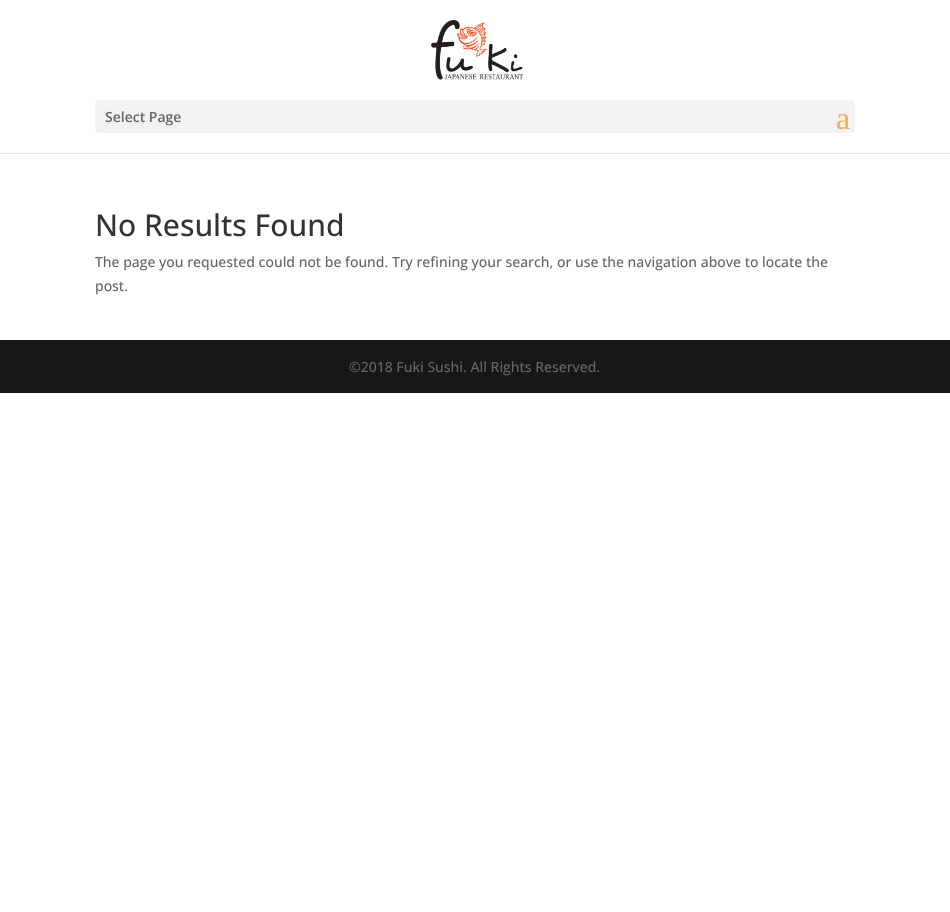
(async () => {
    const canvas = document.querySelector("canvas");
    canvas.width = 950;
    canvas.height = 912;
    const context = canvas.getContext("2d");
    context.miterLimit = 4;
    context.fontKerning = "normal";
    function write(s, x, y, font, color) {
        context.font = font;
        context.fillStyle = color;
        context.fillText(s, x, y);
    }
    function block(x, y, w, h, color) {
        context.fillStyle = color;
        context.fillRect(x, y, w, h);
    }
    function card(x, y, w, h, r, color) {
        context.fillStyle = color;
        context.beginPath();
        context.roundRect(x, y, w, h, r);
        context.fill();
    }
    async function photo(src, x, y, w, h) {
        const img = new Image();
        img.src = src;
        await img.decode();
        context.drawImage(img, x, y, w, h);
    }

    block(0, 0, 950, 912, "rgb(255, 255, 255)");
    block(0, 153, 950, 1, "rgb(230, 230, 230)");
    await photo("media/1.png", 431, 20, 92, 60);
    card(95, 100, 760, 33, 5, "rgb(242, 242, 242)");
    write("Select Page", 105, 122, "600 14px Open Sans", "rgb(102, 102, 102)");
    write("a", 836, 129, "32px Liberation Serif", "rgb(237, 176, 89)");
    write("No Results Found", 95, 236, "500 30px Open Sans", "rgb(51, 51, 51)");
    write("The page you requested could not be found. Try refining your search, or use the navigation above to locate the", 95, 267, "500 14px Open Sans", "rgb(102, 102, 102)");
    write("post.", 95, 291, "500 14px Open Sans", "rgb(102, 102, 102)");
    block(0, 340, 950, 53, "rgb(23, 23, 23)");
    write("©2018 Fuki Sushi. All Rights Reserved.", 349, 372, "500 14px Open Sans", "rgb(102, 102, 102)");
})();
